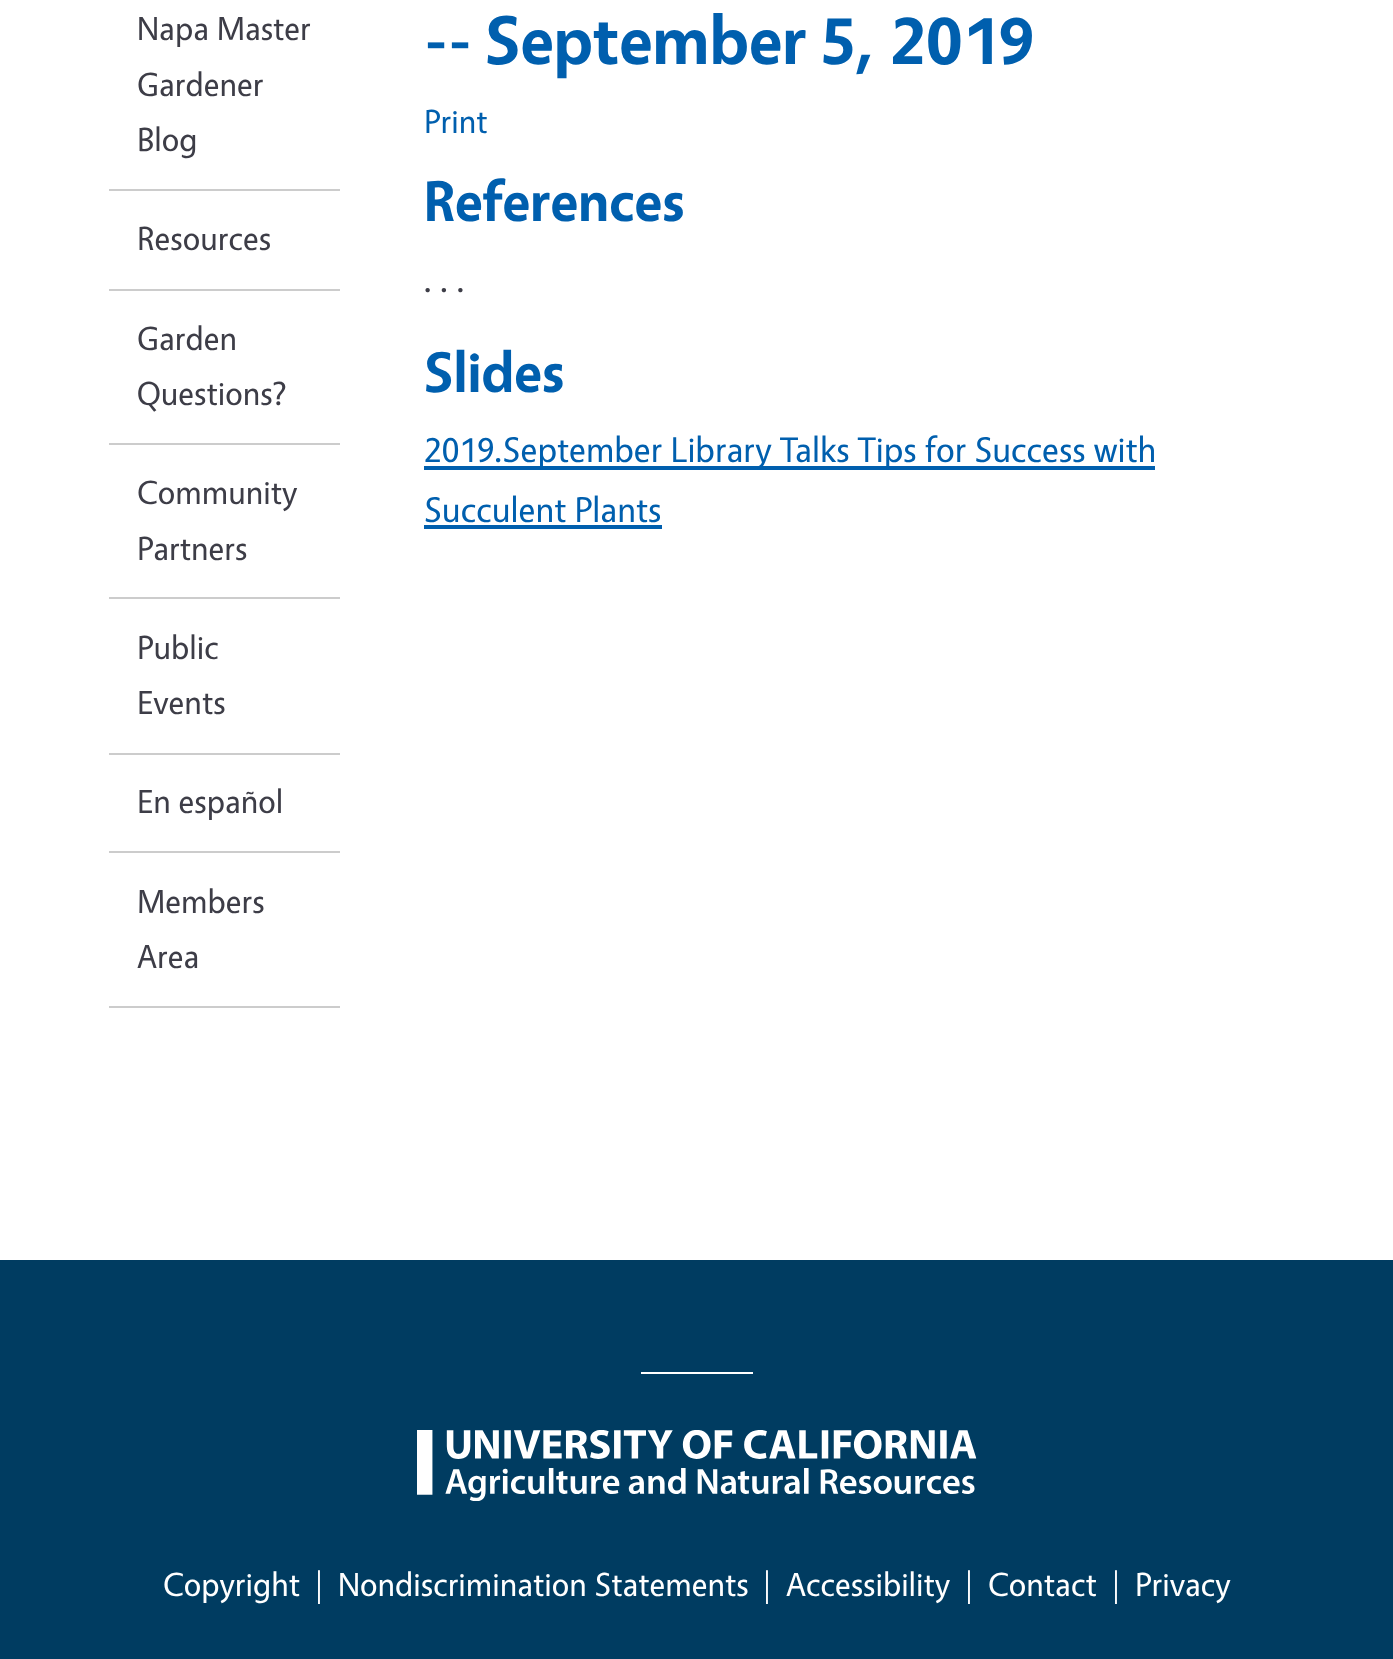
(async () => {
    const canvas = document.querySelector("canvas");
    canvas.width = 1393;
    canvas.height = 1659;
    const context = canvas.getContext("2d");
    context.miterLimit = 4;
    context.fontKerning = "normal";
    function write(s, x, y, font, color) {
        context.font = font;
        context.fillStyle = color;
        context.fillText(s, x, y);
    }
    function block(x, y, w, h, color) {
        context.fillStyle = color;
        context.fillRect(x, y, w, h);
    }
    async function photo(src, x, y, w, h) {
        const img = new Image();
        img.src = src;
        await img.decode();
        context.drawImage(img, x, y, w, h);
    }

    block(0, 0, 1393, 1659, "rgb(255, 255, 255)");
    block(109, 189, 231, 2, "rgb(204, 204, 204)");
    write("Napa Master", 137, 40, "33.6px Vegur", "rgb(61, 61, 71)");
    write("Gardener", 137, 96, "33.6px Vegur", "rgb(61, 61, 71)");
    write("Blog", 137, 151, "33.6px Vegur", "rgb(61, 61, 71)");
    block(109, 289, 231, 2, "rgb(204, 204, 204)");
    write("Resources", 137, 250, "33.6px Vegur", "rgb(61, 61, 71)");
    block(109, 443, 231, 2, "rgb(204, 204, 204)");
    write("Garden", 137, 350, "33.6px Vegur", "rgb(61, 61, 71)");
    write("Questions?", 137, 405, "33.6px Vegur", "rgb(61, 61, 71)");
    block(109, 597, 231, 2, "rgb(204, 204, 204)");
    write("Community", 137, 504, "33.6px Vegur", "rgb(61, 61, 71)");
    write("Partners", 137, 560, "33.6px Vegur", "rgb(61, 61, 71)");
    block(109, 753, 231, 2, "rgb(204, 204, 204)");
    write("Public", 137, 659, "33.6px Vegur", "rgb(61, 61, 71)");
    write("Events", 137, 714, "33.6px Vegur", "rgb(61, 61, 71)");
    block(109, 851, 231, 2, "rgb(204, 204, 204)");
    write("En español", 137, 813, "33.6px Vegur", "rgb(61, 61, 71)");
    block(109, 1006, 231, 2, "rgb(204, 204, 204)");
    write("Members", 137, 913, "33.6px Vegur", "rgb(61, 61, 71)");
    write("Area", 137, 968, "33.6px Vegur", "rgb(61, 61, 71)");
    write("-- September 5, 2019", 424, 64, "bold 69.25px Vegur", "rgb(0, 95, 174)");
    write("Print", 424, 133, "33.6px Vegur", "rgb(0, 95, 174)");
    write("References", 424, 221, "bold 57.5px Vegur", "rgb(0, 95, 174)");
    write(". . .", 424, 292, "36px Vegur", "rgb(61, 61, 71)");
    write("Slides", 424, 392, "bold 57.5px Vegur", "rgb(0, 95, 174)");
    block(424, 466, 731, 4, "rgb(0, 95, 174)");
    write("2019.September Library Talks Tips for Success with", 424, 462, "36px Vegur", "rgb(0, 95, 174)");
    write("Succulent Plants", 424, 522, "36px Vegur", "rgb(0, 95, 174)");
    block(424, 525, 238, 4, "rgb(0, 95, 174)");
    block(0, 1260, 1393, 399, "rgb(0, 60, 97)");
    block(641, 1372, 112, 2, "rgb(255, 255, 255)");
    await photo("media/1.png", 417, 1430, 560, 71);
    write("Copyright", 163, 1596, "33.6px Vegur", "rgb(255, 255, 255)");
    write("|", 314, 1596, "33.6px Vegur", "rgb(255, 255, 255)");
    write("Nondiscrimination Statements", 338, 1596, "33.6px Vegur", "rgb(255, 255, 255)");
    write("|", 762, 1596, "33.6px Vegur", "rgb(255, 255, 255)");
    write("Accessibility", 786, 1596, "33.6px Vegur", "rgb(255, 255, 255)");
    write("|", 964, 1596, "33.6px Vegur", "rgb(255, 255, 255)");
    write("Contact", 988, 1596, "33.6px Vegur", "rgb(255, 255, 255)");
    write("|", 1111, 1596, "33.6px Vegur", "rgb(255, 255, 255)");
    write("Privacy", 1135, 1596, "33.6px Vegur", "rgb(255, 255, 255)");
})();
